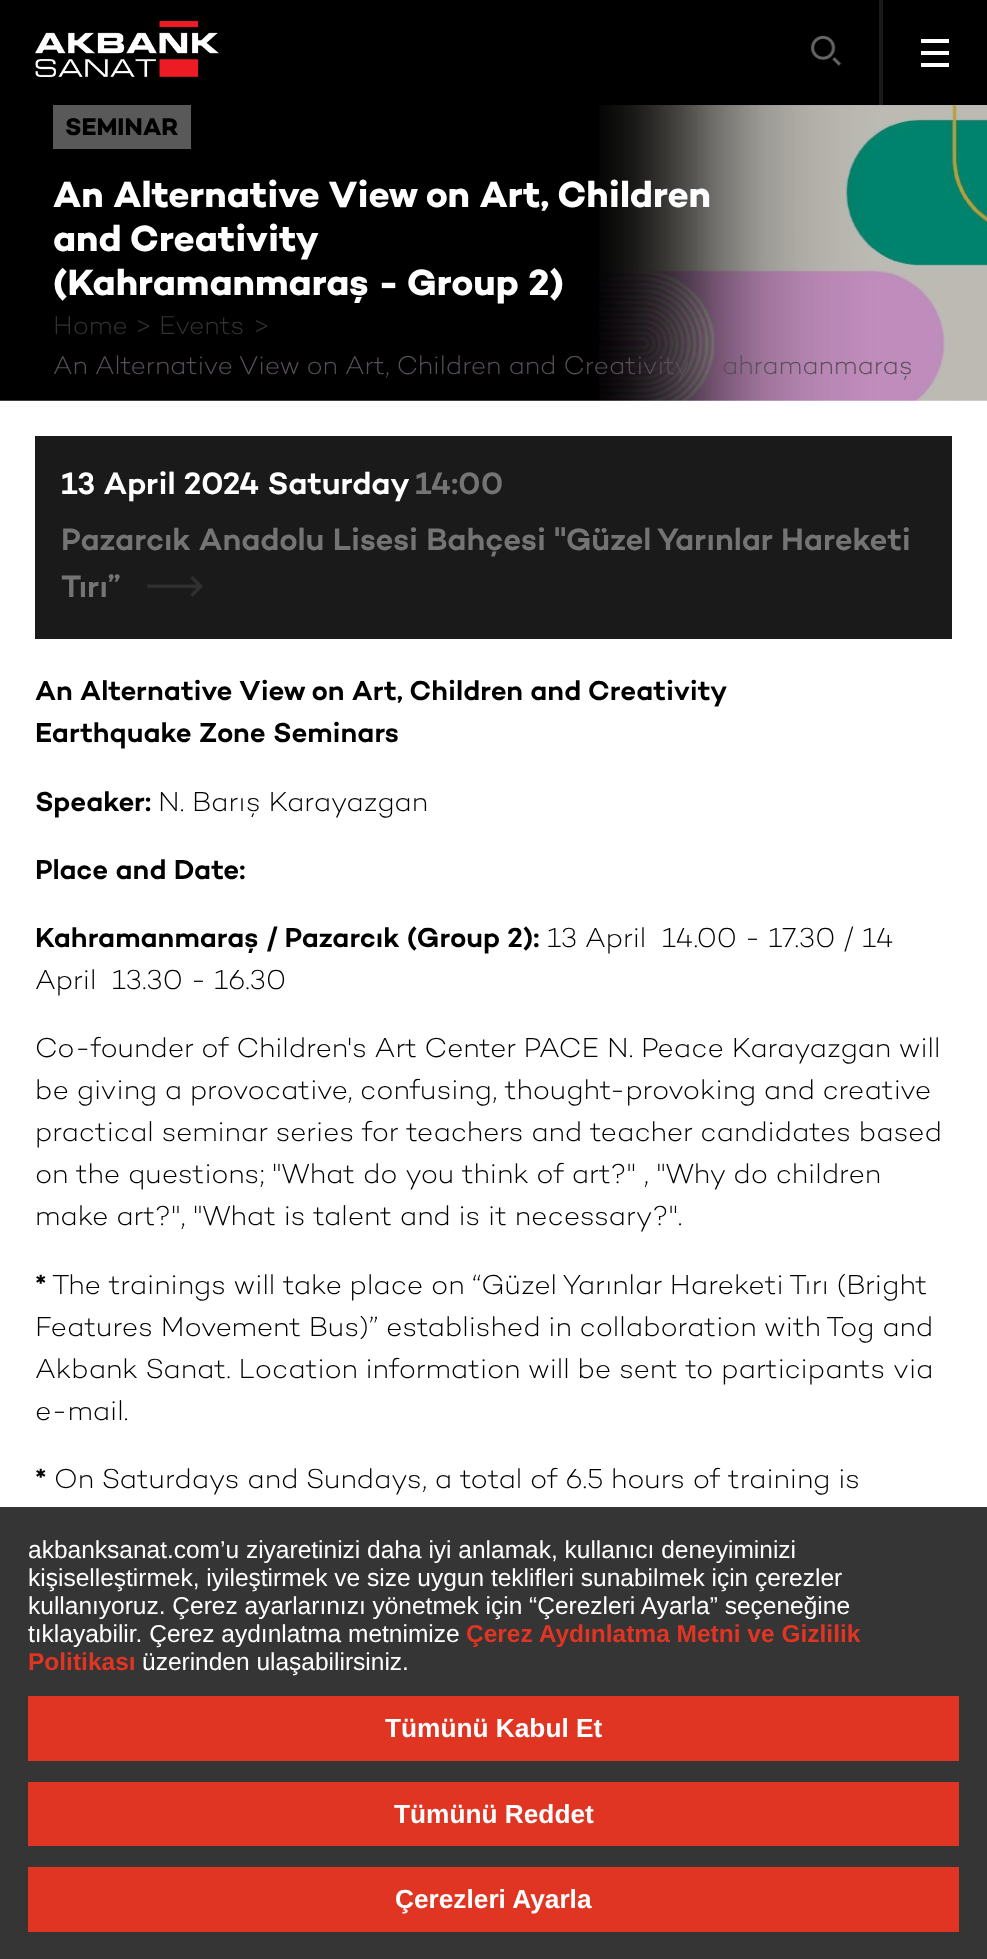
(async () => {
    const canvas = document.querySelector("canvas");
    canvas.width = 987;
    canvas.height = 1959;
    const context = canvas.getContext("2d");
    context.miterLimit = 4;
    context.fontKerning = "normal";
    function write(s, x, y, font, color) {
        context.font = font;
        context.fillStyle = color;
        context.fillText(s, x, y);
    }
    function block(x, y, w, h, color) {
        context.fillStyle = color;
        context.fillRect(x, y, w, h);
    }
    async function photo(src, x, y, w, h) {
        const img = new Image();
        img.src = src;
        await img.decode();
        context.drawImage(img, x, y, w, h);
    }

    block(0, 0, 987, 1959, "rgb(255, 255, 255)");
    block(0, 0, 987, 105, "rgb(0, 0, 0)");
    await photo("media/1.png", 810, 35, 32, 31);
    block(879, 0, 4, 105, "rgb(26, 26, 26)");
    block(921, 39, 28, 4, "rgb(255, 255, 255)");
    block(921, 51, 28, 4, "rgb(255, 255, 255)");
    block(921, 63, 28, 4, "rgb(255, 255, 255)");
    await photo("media/2.png", 35, 21, 184, 56);
    await photo("media/3.png", 0, 105, 987, 296);
    block(53, 105, 138, 44, "rgb(89, 89, 89)");
    write("SEMINAR", 65, 135, "bold 24.5px 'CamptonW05'", "rgb(0, 0, 0)");
    write("An Alternative View on Art, Children", 53, 207, "bold 37px 'CamptonW05'", "rgb(255, 255, 255)");
    write("and Creativity", 53, 251, "bold 37px 'CamptonW05'", "rgb(255, 255, 255)");
    write("(Kahramanmaraş - Group 2)", 53, 295, "bold 37px 'CamptonW05'", "rgb(255, 255, 255)");
    write("Home", 53, 334, "300 26.25px 'CamptonW05'", "rgb(51, 51, 51)");
    write(">", 136, 334, "300 26.25px 'CamptonW05'", "rgb(51, 51, 51)");
    write("Events", 159, 334, "300 26.25px 'CamptonW05'", "rgb(51, 51, 51)");
    write(">", 254, 334, "300 26.25px 'CamptonW05'", "rgb(51, 51, 51)");
    write("An Alternative View on Art, Children and Creativity", 53, 374, "300 26.25px 'CamptonW05'", "rgb(89, 79, 88)");
    write("ahramanmaraş", 722, 374, "300 26.25px 'CamptonW05'", "rgb(89, 79, 88)");
    block(35, 436, 917, 203, "rgb(26, 26, 26)");
    write("13 April 2024 Saturday", 61, 494, "600 31.5px 'CamptonW05'", "rgb(255, 255, 255)");
    write("14:00", 415, 494, "600 31.5px 'CamptonW05'", "rgb(116, 116, 116)");
    write("Pazarcık Anadolu Lisesi Bahçesi \"Güzel Yarınlar Hareketi", 61, 550, "600 31.5px 'CamptonW05'", "rgb(116, 116, 116)");
    write("Tırı”", 61, 597, "600 31.5px 'CamptonW05'", "rgb(116, 116, 116)");
    await photo("media/4.png", 147, 576, 56, 21);
    write("An Alternative View on Art, Children and Creativity", 35, 700, "600 28px 'CamptonW05'", "rgb(0, 0, 0)");
    write("Earthquake Zone Seminars", 35, 742, "600 28px 'CamptonW05'", "rgb(0, 0, 0)");
    write("Speaker:", 35, 811, "600 28px 'CamptonW05'", "rgb(0, 0, 0)");
    write("N.", 158, 811, "300 28px 'CamptonW05'", "rgb(0, 0, 0)");
    write("Barış Karayazgan", 192, 811, "300 28px 'CamptonW05'", "rgb(0, 0, 0)");
    write("Place and Date:", 35, 879, "600 28px 'CamptonW05'", "rgb(0, 0, 0)");
    write("Kahramanmaraş / Pazarcık (Group 2):", 35, 947, "600 28px 'CamptonW05'", "rgb(0, 0, 0)");
    write("13 April  14.00 - 17.30 / 14", 547, 947, "300 28px 'CamptonW05'", "rgb(0, 0, 0)");
    write("April  13.30 - 16.30", 35, 989, "300 28px 'CamptonW05'", "rgb(0, 0, 0)");
    write("Co-founder of Children's Art Center PACE N. Peace Karayazgan will", 35, 1057, "300 28px 'CamptonW05'", "rgb(0, 0, 0)");
    write("be giving a provocative, confusing, thought-provoking and creative", 35, 1099, "300 28px 'CamptonW05'", "rgb(0, 0, 0)");
    write("practical seminar series for teachers and teacher candidates based", 35, 1141, "300 28px 'CamptonW05'", "rgb(0, 0, 0)");
    write("on the questions; \"What do you think of art?\" , \"Why do children", 35, 1183, "300 28px 'CamptonW05'", "rgb(0, 0, 0)");
    write("make art?\", \"What is talent and is it necessary?\".", 35, 1225, "300 28px 'CamptonW05'", "rgb(0, 0, 0)");
    write("*", 35, 1294, "600 28px 'CamptonW05'", "rgb(0, 0, 0)");
    write("The trainings will take place on “Güzel Yarınlar Hareketi Tırı (Bright", 52, 1294, "300 28px 'CamptonW05'", "rgb(0, 0, 0)");
    write("Features Movement Bus)” established in collaboration with Tog and", 35, 1336, "300 28px 'CamptonW05'", "rgb(0, 0, 0)");
    write("Akbank Sanat. Location information will be sent to participants via", 35, 1378, "300 28px 'CamptonW05'", "rgb(0, 0, 0)");
    write("e-mail.", 35, 1420, "300 28px 'CamptonW05'", "rgb(0, 0, 0)");
    write("*", 35, 1488, "600 28px 'CamptonW05'", "rgb(0, 0, 0)");
    write("On Saturdays and Sundays, a total of 6.5 hours of training is", 54, 1488, "300 28px 'CamptonW05'", "rgb(0, 0, 0)");
    block(0, 1507, 987, 452, "rgb(53, 53, 53)");
    write("akbanksanat.com’u ziyaretinizi daha iyi anlamak, kullanıcı deneyiminizi", 28, 1558, "24.5px Liberation Sans", "rgb(255, 255, 255)");
    write("kişiselleştirmek, iyileştirmek ve size uygun teklifleri sunabilmek için çerezler", 28, 1586, "24.5px Liberation Sans", "rgb(255, 255, 255)");
    write("kullanıyoruz. Çerez ayarlarınızı yönetmek için “Çerezleri Ayarla” seçeneğine", 28, 1614, "24.5px Liberation Sans", "rgb(255, 255, 255)");
    write("tıklayabilir. Çerez aydınlatma metnimize", 28, 1642, "24.5px Liberation Sans", "rgb(255, 255, 255)");
    write("Çerez Aydınlatma Metni ve Gizlilik", 466, 1642, "bold 24.5px Liberation Sans", "rgb(224, 53, 35)");
    write("Politikası", 28, 1670, "bold 24.5px Liberation Sans", "rgb(224, 53, 35)");
    write("üzerinden ulaşabilirsiniz.", 142, 1670, "24.5px Liberation Sans", "rgb(255, 255, 255)");
    block(28, 1696, 931, 65, "rgb(224, 53, 35)");
    write("Tümünü Kabul Et", 385, 1737, "bold 26.25px Liberation Sans", "rgb(255, 255, 255)");
    block(28, 1782, 931, 64, "rgb(224, 53, 35)");
    write("Tümünü Reddet", 394, 1823, "bold 26.25px Liberation Sans", "rgb(255, 255, 255)");
    block(28, 1867, 931, 65, "rgb(224, 53, 35)");
    write("Çerezleri Ayarla", 395, 1908, "bold 26.25px Liberation Sans", "rgb(255, 255, 255)");
})();
